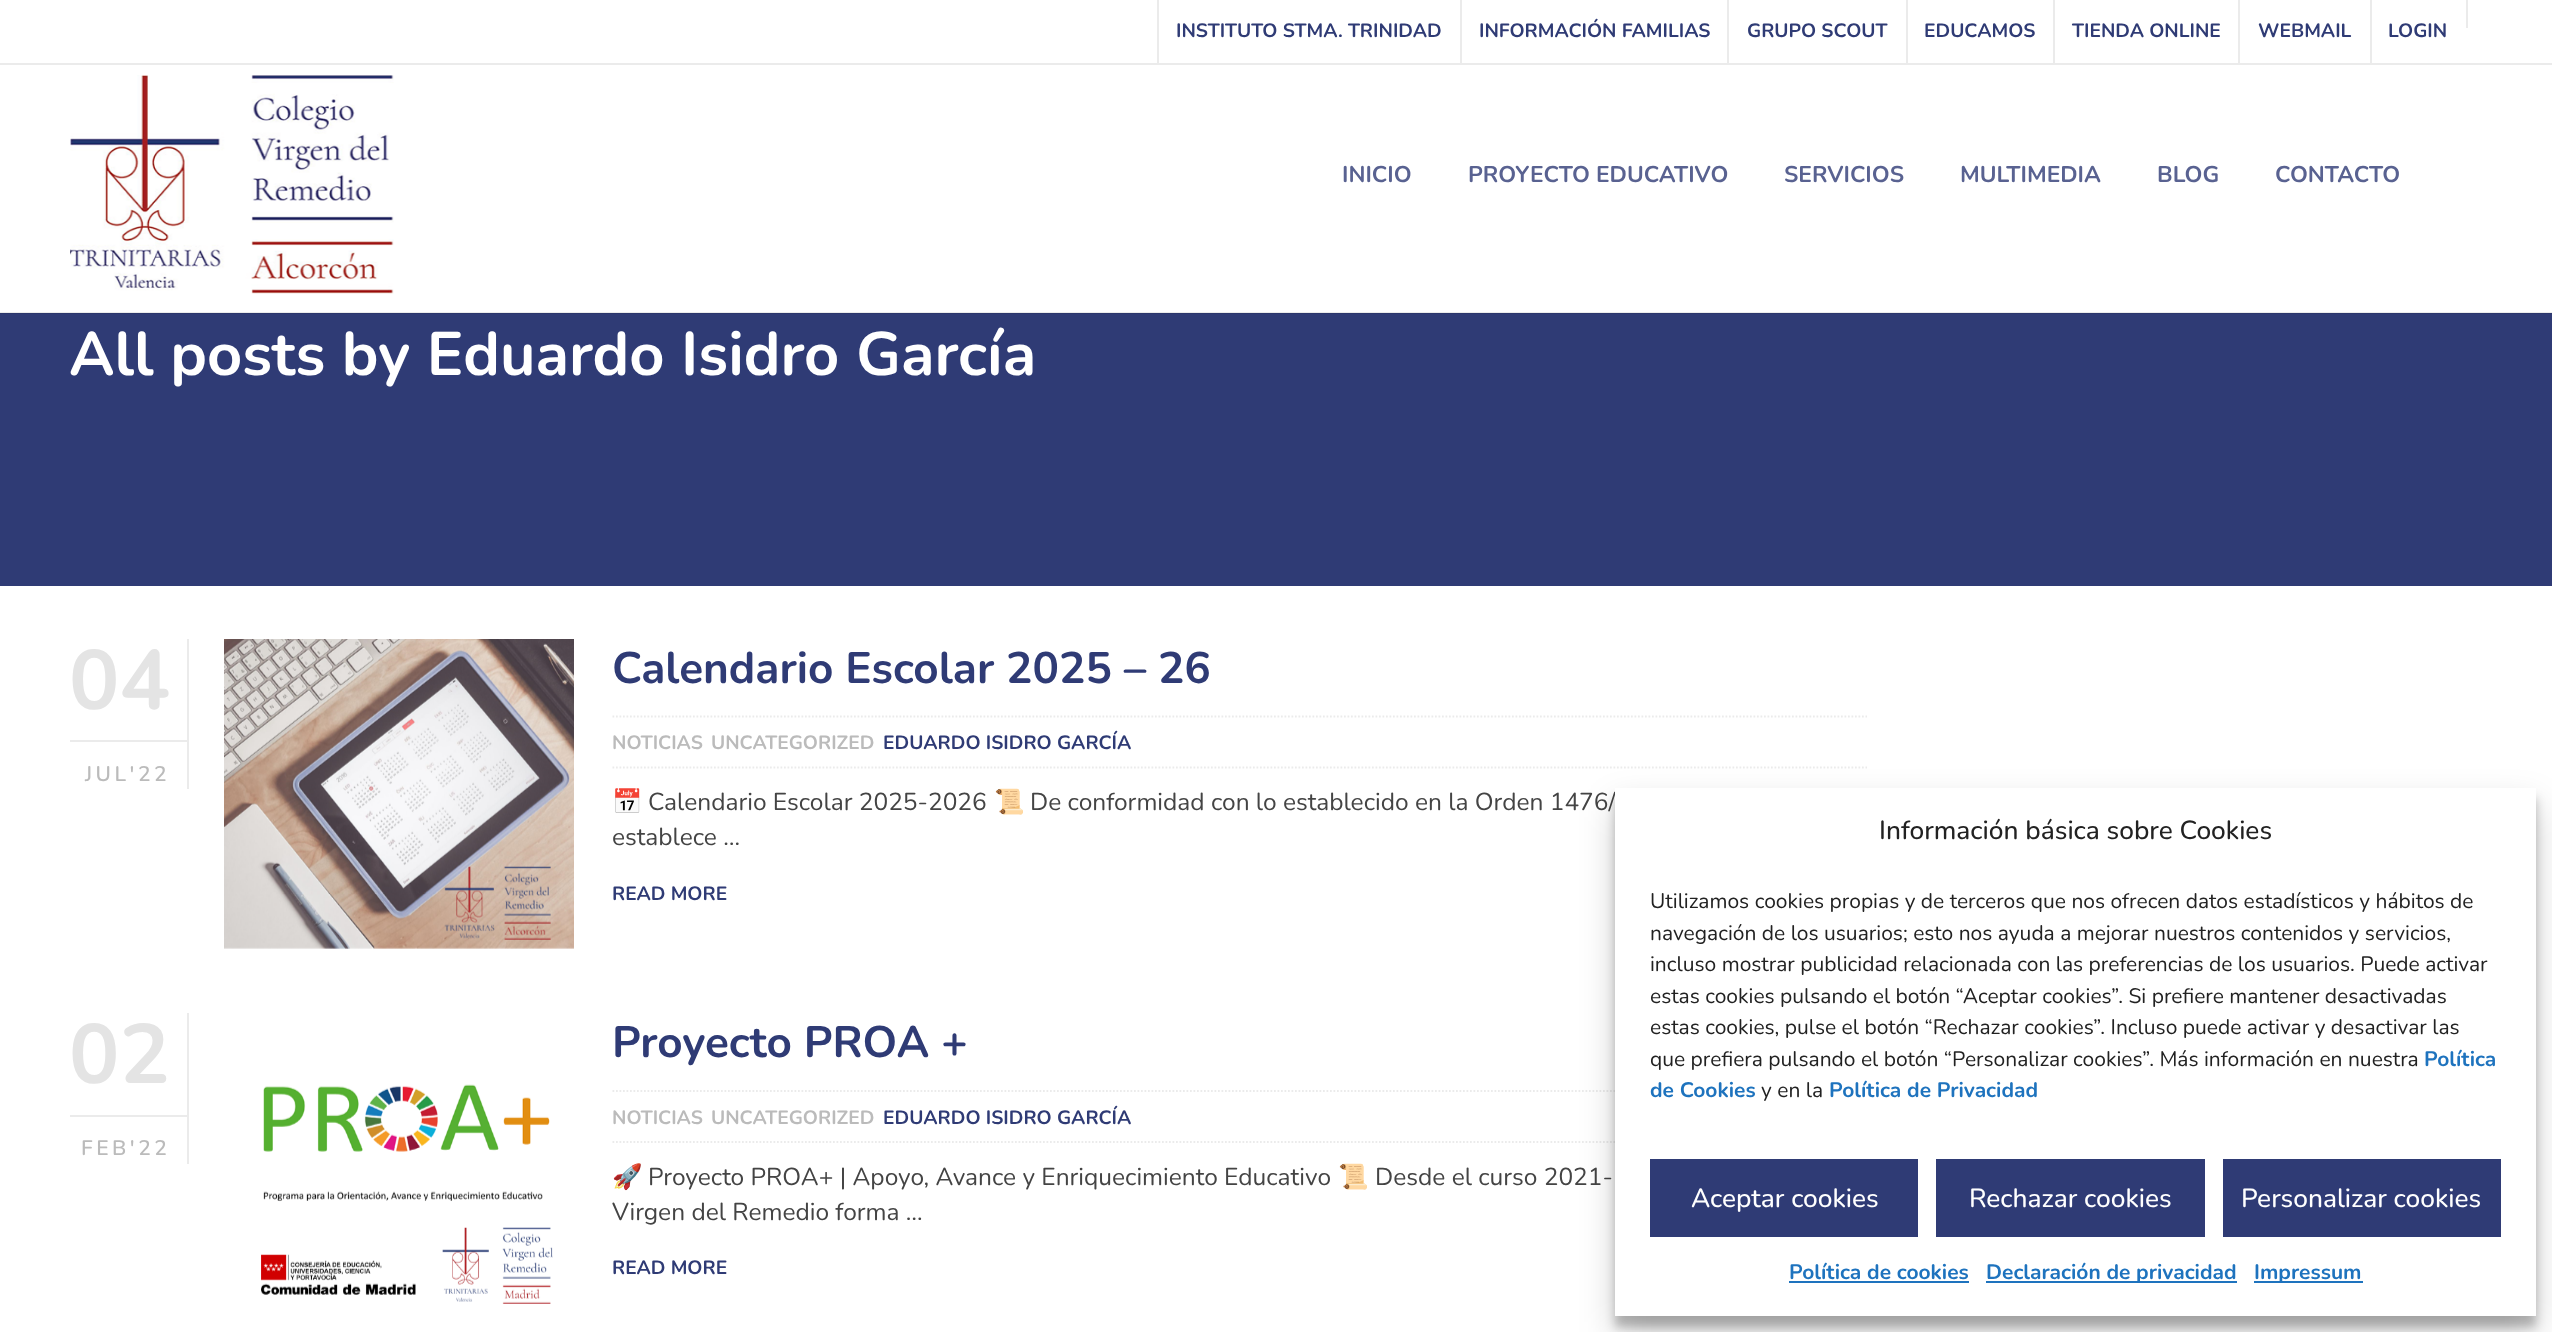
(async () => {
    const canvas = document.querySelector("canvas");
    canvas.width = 2552;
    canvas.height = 1332;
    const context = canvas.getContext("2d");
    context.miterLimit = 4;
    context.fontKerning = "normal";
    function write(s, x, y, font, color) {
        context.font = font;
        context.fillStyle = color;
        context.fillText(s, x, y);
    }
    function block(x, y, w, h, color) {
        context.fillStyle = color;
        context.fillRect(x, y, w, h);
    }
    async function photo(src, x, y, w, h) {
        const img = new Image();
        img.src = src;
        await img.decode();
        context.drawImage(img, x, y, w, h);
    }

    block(0, 0, 2552, 1332, "rgb(255, 255, 255)");
    block(0, 312, 2552, 1, "rgb(235, 235, 235)");
    block(0, 63, 2552, 2, "rgb(235, 235, 235)");
    block(1157, 0, 2, 63, "rgb(235, 235, 235)");
    write("INSTITUTO STMA. TRINIDAD", 1176, 37, "bold 19.25px Nunito", "rgb(47, 59, 117)");
    block(1460, 0, 2, 63, "rgb(235, 235, 235)");
    write("INFORMACIÓN FAMILIAS", 1479, 37, "bold 19.25px Nunito", "rgb(47, 59, 117)");
    block(1727, 0, 2, 63, "rgb(235, 235, 235)");
    write("GRUPO SCOUT", 1747, 37, "bold 19.25px Nunito", "rgb(47, 59, 117)");
    block(1906, 0, 2, 63, "rgb(235, 235, 235)");
    write("EDUCAMOS", 1924, 37, "bold 19.25px Nunito", "rgb(47, 59, 117)");
    block(2053, 0, 2, 63, "rgb(235, 235, 235)");
    write("TIENDA ONLINE", 2072, 37, "bold 19.25px Nunito", "rgb(47, 59, 117)");
    block(2238, 0, 2, 63, "rgb(235, 235, 235)");
    write("WEBMAIL", 2258, 37, "bold 19.25px Nunito", "rgb(47, 59, 117)");
    block(2466, 0, 2, 28, "rgb(235, 235, 235)");
    block(2370, 0, 2, 63, "rgb(235, 235, 235)");
    write("LOGIN", 2388, 37, "bold 19.25px Nunito", "rgb(47, 59, 117)");
    await photo("media/1.png", 70, 75, 324, 219);
    write("INICIO", 1342, 182, "bold 22.75px Nunito", "rgb(89, 98, 145)");
    write("PROYECTO EDUCATIVO", 1468, 182, "bold 22.75px Nunito", "rgb(89, 98, 145)");
    write("SERVICIOS", 1784, 182, "bold 22.75px Nunito", "rgb(89, 98, 145)");
    write("MULTIMEDIA", 1960, 182, "bold 22.75px Nunito", "rgb(89, 98, 145)");
    write("BLOG", 2157, 182, "bold 22.75px Nunito", "rgb(89, 98, 145)");
    write("CONTACTO", 2275, 182, "bold 22.75px Nunito", "rgb(89, 98, 145)");
    block(0, 314, 2552, 272, "rgb(47, 59, 117)");
    block(0, 313, 2552, 1, "rgb(43, 54, 108)");
    write("All posts by Eduardo Isidro García", 69, 375, "bold 61.25px Nunito", "rgb(255, 255, 255)");
    block(187, 639, 2, 150, "rgb(235, 235, 235)");
    write("04", 69, 709, "bold 84px Nunito", "rgb(228, 228, 228)");
    block(70, 740, 117, 2, "rgb(235, 235, 235)");
    context.letterSpacing = "3.5px";
    write("JUL'22", 85, 781, "600 21px Nunito", "rgb(187, 187, 187)");
    await photo("media/2.png", 224, 639, 350, 310);
    context.letterSpacing = "0px";
    write("Calendario Escolar 2025 – 26", 612, 683, "bold 44.1px Nunito", "rgb(47, 59, 117)");
    context.beginPath();
    context.moveTo(612.5, 716.5);
    context.lineTo(1867, 716.5);
    context.strokeStyle = "rgb(235, 235, 235)";
    context.lineWidth = 1.8;
    context.setLineDash([1.75, 1.75]);
    context.stroke();
    context.beginPath();
    context.moveTo(612.5, 767.5);
    context.lineTo(1867, 767.5);
    context.stroke();
    write("NOTICIAS", 612, 749, "bold 19.25px Nunito", "rgb(187, 187, 187)");
    write("UNCATEGORIZED", 711, 749, "bold 19.25px Nunito", "rgb(187, 187, 187)");
    write("EDUARDO ISIDRO GARCÍA", 883, 749, "bold 19.25px Nunito", "rgb(47, 59, 117)");
    write("📅", 612, 810, "24.5px Noto Color Emoji", "rgb(68, 68, 68)");
    write("Calendario Escolar 2025-2026", 648, 810, "24.5px Nunito", "rgb(68, 68, 68)");
    write("📜", 994, 810, "24.5px Noto Color Emoji", "rgb(68, 68, 68)");
    write("De conformidad con lo establecido en la Orden 1476/", 1030, 810, "24.5px Nunito", "rgb(68, 68, 68)");
    write("establece …", 612, 845, "24.5px Nunito", "rgb(68, 68, 68)");
    write("READ MORE", 612, 900, "bold 19.25px Nunito", "rgb(47, 59, 117)");
    block(187, 1013, 2, 151, "rgb(235, 235, 235)");
    write("02", 69, 1083, "bold 84px Nunito", "rgb(228, 228, 228)");
    block(70, 1115, 117, 2, "rgb(235, 235, 235)");
    context.letterSpacing = "3.5px";
    write("FEB'22", 81, 1155, "600 21px Nunito", "rgb(187, 187, 187)");
    await photo("media/3.png", 261, 1084, 292, 220);
    context.letterSpacing = "0px";
    write("Proyecto PROA +", 612, 1057, "bold 44.1px Nunito", "rgb(47, 59, 117)");
    context.beginPath();
    context.moveTo(612.5, 1091);
    context.lineTo(1867, 1091);
    context.stroke();
    context.beginPath();
    context.moveTo(612.5, 1142);
    context.lineTo(1867, 1142);
    context.stroke();
    write("NOTICIAS", 612, 1124, "bold 19.25px Nunito", "rgb(187, 187, 187)");
    write("UNCATEGORIZED", 711, 1124, "bold 19.25px Nunito", "rgb(187, 187, 187)");
    write("EDUARDO ISIDRO GARCÍA", 883, 1124, "bold 19.25px Nunito", "rgb(47, 59, 117)");
    write("🚀", 612, 1185, "24.5px Noto Color Emoji", "rgb(68, 68, 68)");
    write("Proyecto PROA+ | Apoyo, Avance y Enriquecimiento Educativo", 648, 1185, "24.5px Nunito", "rgb(68, 68, 68)");
    write("📜", 1338, 1185, "24.5px Noto Color Emoji", "rgb(68, 68, 68)");
    write("Desde el curso 2021-", 1375, 1185, "24.5px Nunito", "rgb(68, 68, 68)");
    write("Virgen del Remedio forma …", 612, 1220, "24.5px Nunito", "rgb(68, 68, 68)");
    write("READ MORE", 612, 1274, "bold 19.25px Nunito", "rgb(47, 59, 117)");
    context.fillStyle = "rgba(0, 0, 0, 0.23)";
    context.filter = "blur(5px)";
    context.beginPath();
    context.rect(1615, 798, 921, 529);
    context.fill();
    context.filter = "none";
    context.fillStyle = "rgba(0, 0, 0, 0.19)";
    context.filter = "blur(17.5px)";
    context.beginPath();
    context.rect(1615, 805, 921, 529);
    context.fill();
    context.filter = "none";
    block(1615, 788, 921, 528, "rgb(255, 255, 255)");
    write("Información básica sobre Cookies", 1879, 839, "500 26.25px Nunito", "rgb(34, 34, 34)");
    write("Utilizamos cookies propias y de terceros que nos ofrecen datos estadísticos y hábitos de", 1650, 908, "21px Nunito", "rgb(34, 34, 34)");
    write("navegación de los usuarios; esto nos ayuda a mejorar nuestros contenidos y servicios,", 1650, 940, "21px Nunito", "rgb(34, 34, 34)");
    write("incluso mostrar publicidad relacionada con las preferencias de los usuarios. Puede activar", 1650, 971, "21px Nunito", "rgb(34, 34, 34)");
    write("estas cookies pulsando el botón “Aceptar cookies”. Si prefiere mantener desactivadas", 1650, 1003, "21px Nunito", "rgb(34, 34, 34)");
    write("estas cookies, pulse el botón “Rechazar cookies”. Incluso puede activar y desactivar las", 1650, 1034, "21px Nunito", "rgb(34, 34, 34)");
    write("que prefiera pulsando el botón “Personalizar cookies”. Más información en nuestra", 1650, 1066, "21px Nunito", "rgb(34, 34, 34)");
    write("Política", 2424, 1066, "bold 21px Nunito", "rgb(30, 115, 190)");
    write("de Cookies", 1650, 1097, "bold 21px Nunito", "rgb(30, 115, 190)");
    write("y en la", 1761, 1097, "21px Nunito", "rgb(34, 34, 34)");
    write("Política de Privacidad", 1829, 1097, "bold 21px Nunito", "rgb(30, 115, 190)");
    block(1650, 1159, 268, 78, "rgb(47, 59, 117)");
    write("Aceptar cookies", 1691, 1207, "500 26.25px Nunito", "rgb(255, 255, 255)");
    block(1936, 1159, 269, 78, "rgb(47, 59, 117)");
    write("Rechazar cookies", 1969, 1207, "500 26.25px Nunito", "rgb(255, 255, 255)");
    block(2223, 1159, 278, 78, "rgb(47, 59, 117)");
    write("Personalizar cookies", 2241, 1207, "500 26.25px Nunito", "rgb(255, 255, 255)");
    write("Política de cookies", 1789, 1279, "bold 21px Nunito", "rgb(30, 115, 190)");
    block(1789, 1281, 180, 2, "rgb(30, 115, 190)");
    block(1986, 1281, 251, 2, "rgb(30, 115, 190)");
    write("Declaración de privacidad", 1986, 1279, "bold 21px Nunito", "rgb(30, 115, 190)");
    block(2254, 1281, 109, 2, "rgb(30, 115, 190)");
    write("Impressum", 2254, 1279, "bold 21px Nunito", "rgb(30, 115, 190)");
})();
